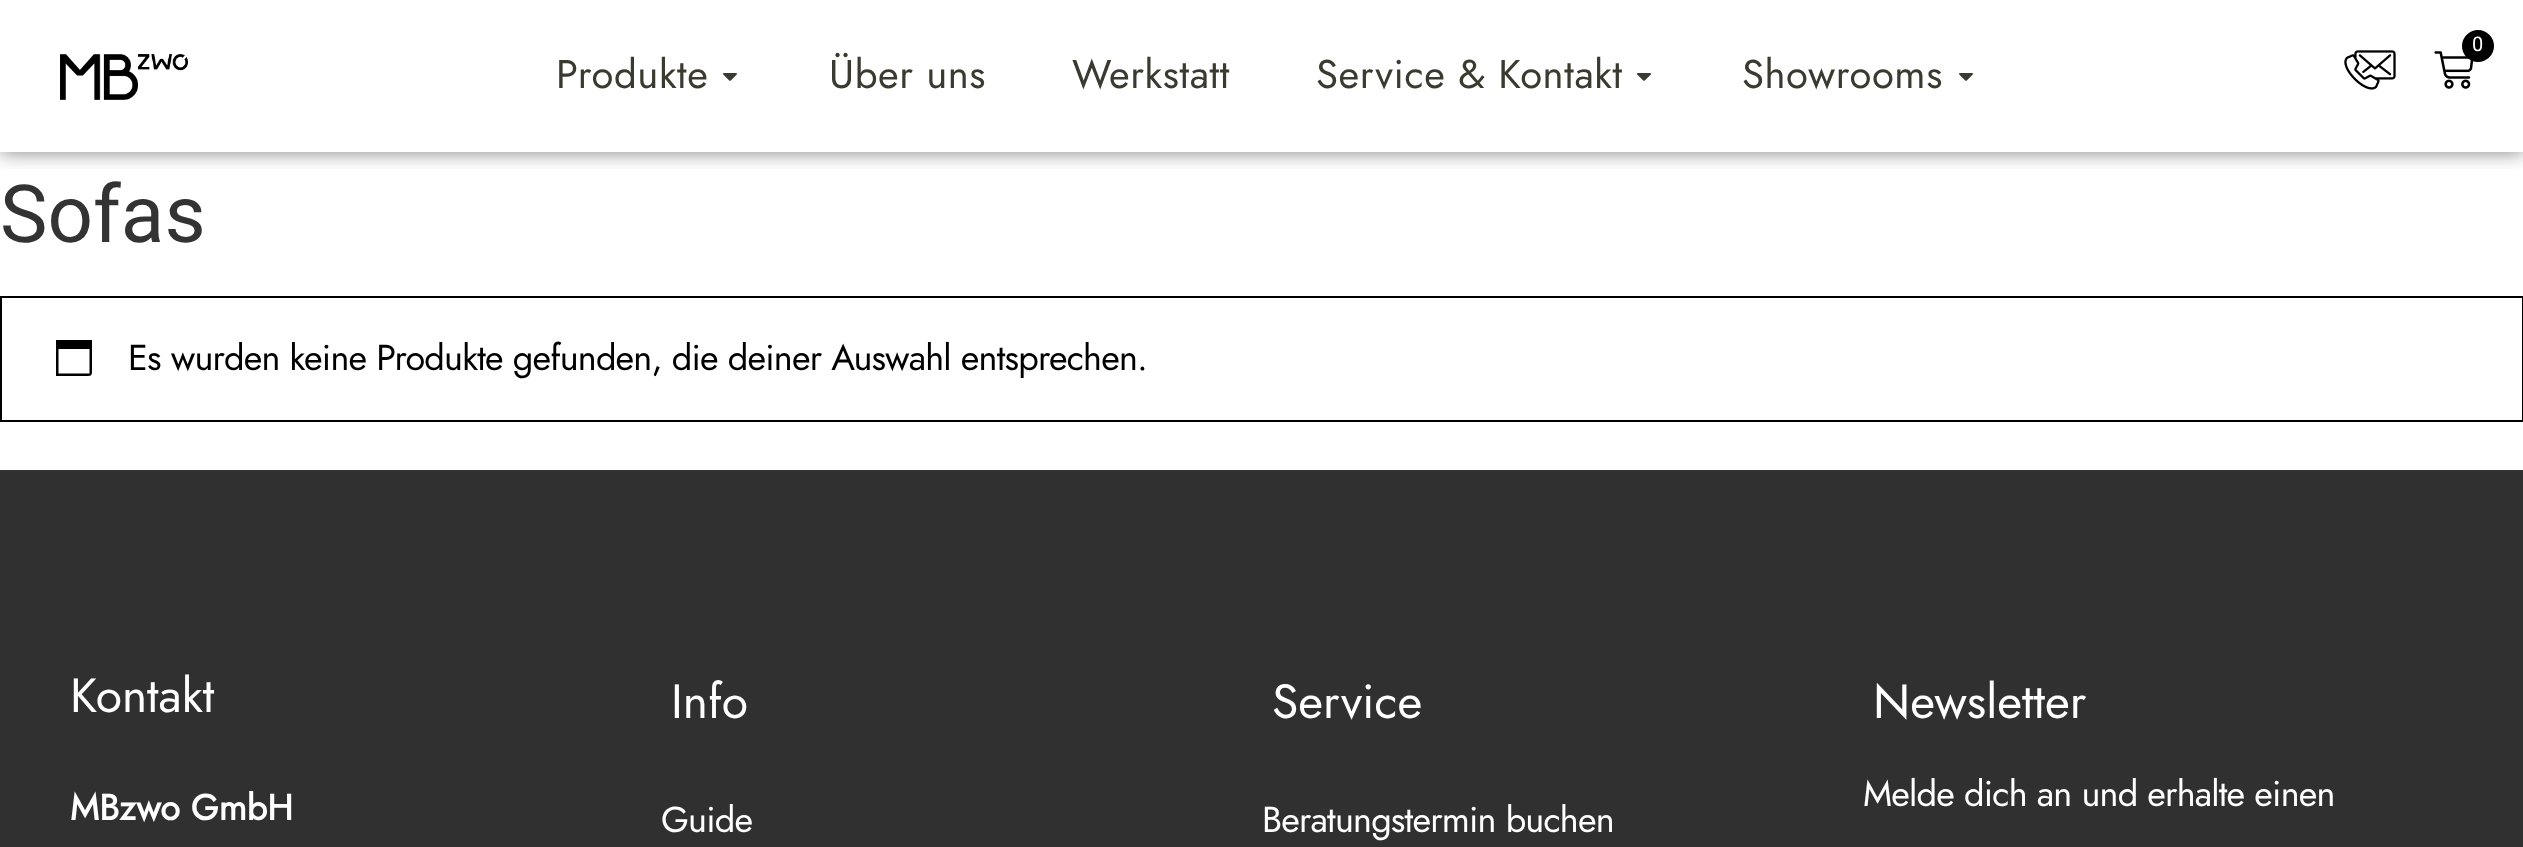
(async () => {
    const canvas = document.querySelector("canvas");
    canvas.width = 2523;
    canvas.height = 847;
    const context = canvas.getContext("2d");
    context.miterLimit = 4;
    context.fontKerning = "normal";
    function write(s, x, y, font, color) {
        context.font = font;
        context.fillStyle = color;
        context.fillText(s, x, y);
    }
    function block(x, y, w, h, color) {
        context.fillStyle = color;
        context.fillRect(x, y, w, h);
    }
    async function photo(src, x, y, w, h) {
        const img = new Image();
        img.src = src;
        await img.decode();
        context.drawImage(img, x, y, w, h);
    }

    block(0, 0, 2523, 847, "rgb(255, 255, 255)");
    context.save();
    context.beginPath();
    context.rect(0, 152, 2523, 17);
    context.clip();
    context.fillStyle = "rgba(0, 0, 0, 0.5)";
    context.filter = "blur(10px)";
    context.beginPath();
    context.rect(0, 0, 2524, 152);
    context.fill();
    context.filter = "none";
    context.restore();
    await photo("media/1.png", 2434, 51, 40, 38);
    context.fillStyle = "rgb(0, 0, 0)";
    context.beginPath();
    context.arc(2478, 46, 16, 0, Math.PI * 2);
    context.fill();
    write("0", 2472, 51, "20px Roboto", "rgb(255, 255, 255)");
    await photo("media/2.png", 2344, 50, 52, 40);
    await photo("media/3.png", 60, 54, 128, 46);
    context.letterSpacing = "0.6px";
    write("Produkte", 556, 88, "40px Jost", "rgb(58, 58, 48)");
    await photo("media/4.png", 723, 73, 14, 8);
    write("Über uns", 829, 88, "40px Jost", "rgb(58, 58, 48)");
    write("Werkstatt", 1072, 88, "40px Jost", "rgb(58, 58, 48)");
    write("Service & Kontakt", 1316, 88, "40px Jost", "rgb(58, 58, 48)");
    await photo("media/4.png", 1637, 73, 14, 8);
    write("Showrooms", 1742, 88, "40px Jost", "rgb(58, 58, 48)");
    await photo("media/4.png", 1959, 73, 14, 8);
    context.letterSpacing = "0px";
    write("Sofas", 0, 242, "80px Roboto", "rgb(51, 51, 51)");
    context.strokeStyle = "rgb(0, 0, 0)";
    context.lineWidth = 2;
    context.strokeRect(1, 297, 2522, 124);
    context.fillStyle = "rgb(0, 0, 0)";
    context.beginPath();
    context.moveTo(89.5, 349);
    context.lineTo(58.5, 349);
    context.lineTo(58.5, 373.5);
    context.lineTo(89.5, 373.5);
    context.closePath();
    context.moveTo(92, 340);
    context.lineTo(92, 368);
    context.bezierCurveTo(92, 376.5, 92.5, 376, 84, 376);
    context.lineTo(56, 376);
    context.lineTo(56, 340);
    context.closePath();
    context.fill();
    context.letterSpacing = "-0.8px";
    write("Es wurden keine Produkte gefunden, die deiner Auswahl entsprechen.", 128, 370, "36px Jost", "rgb(0, 0, 0)");
    block(0, 472, 2523, 375, "rgb(48, 48, 48)");
    block(0, 470, 2523, 2, "rgb(51, 51, 51)");
    context.letterSpacing = "0px";
    write("Kontakt", 70, 712, "48px Jost", "rgb(255, 255, 255)");
    write("MBzwo GmbH", 70, 820, "bold 36px Jost", "rgb(255, 255, 255)");
    write("Info", 671, 718, "48px Jost", "rgb(255, 255, 255)");
    context.letterSpacing = "-0.8px";
    write("Guide", 661, 832, "36px Jost", "rgb(255, 255, 255)");
    context.letterSpacing = "0px";
    write("Service", 1272, 718, "48px Jost", "rgb(255, 255, 255)");
    context.letterSpacing = "-0.8px";
    write("Beratungstermin buchen", 1262, 832, "36px Jost", "rgb(255, 255, 255)");
    context.letterSpacing = "0px";
    write("Newsletter", 1873, 718, "48px Jost", "rgb(255, 255, 255)");
    context.letterSpacing = "-0.8px";
    write("Melde dich an und erhalte einen", 1863, 806, "36px Jost", "rgb(255, 255, 255)");
})();
